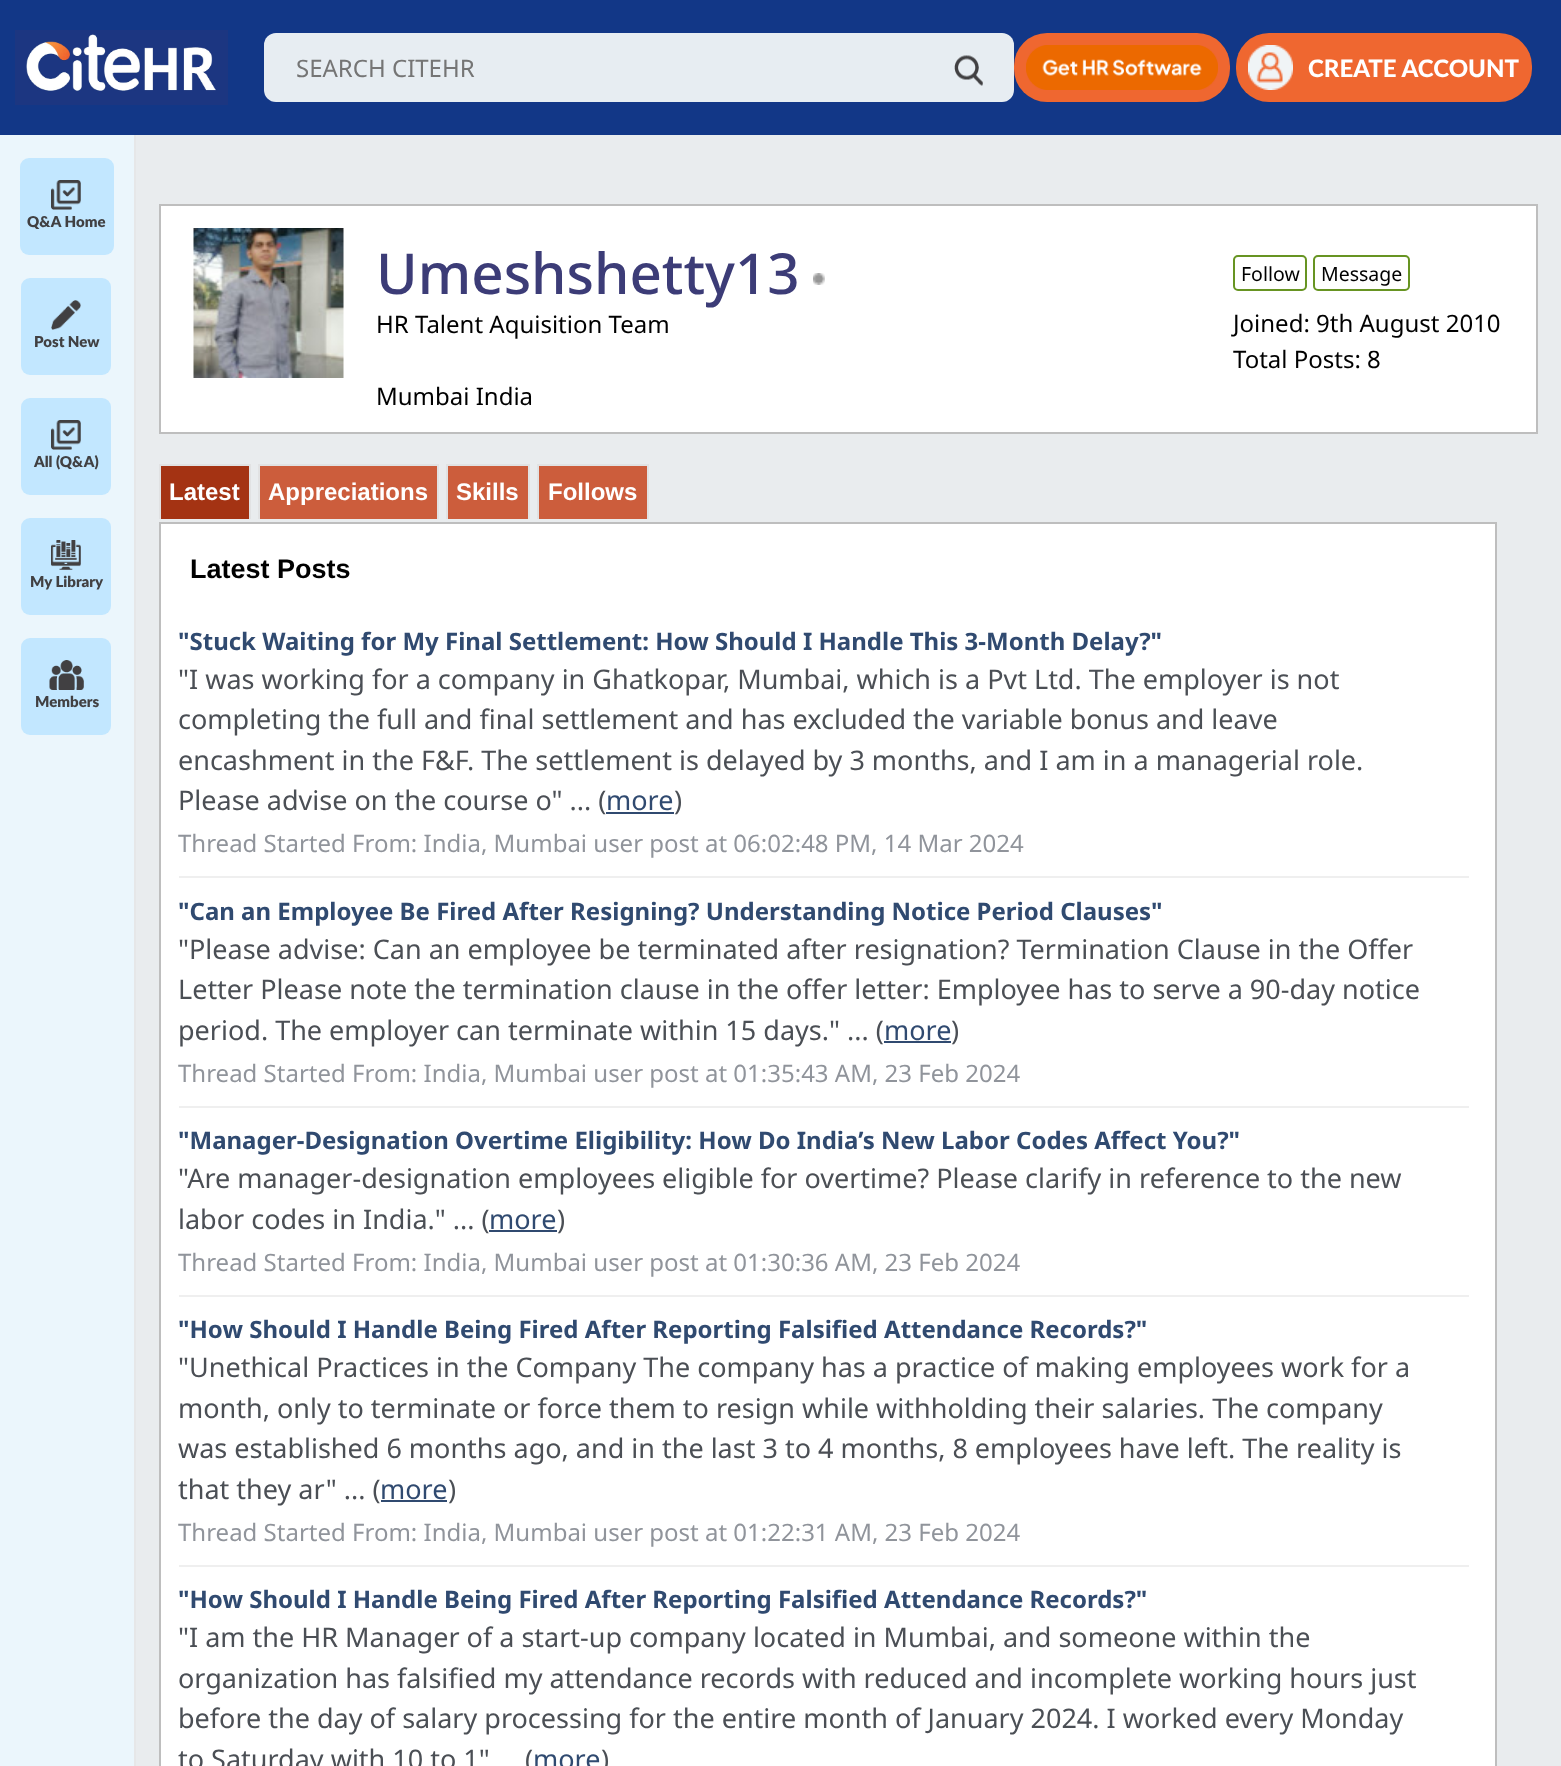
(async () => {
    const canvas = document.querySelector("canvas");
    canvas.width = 1561;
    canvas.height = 1766;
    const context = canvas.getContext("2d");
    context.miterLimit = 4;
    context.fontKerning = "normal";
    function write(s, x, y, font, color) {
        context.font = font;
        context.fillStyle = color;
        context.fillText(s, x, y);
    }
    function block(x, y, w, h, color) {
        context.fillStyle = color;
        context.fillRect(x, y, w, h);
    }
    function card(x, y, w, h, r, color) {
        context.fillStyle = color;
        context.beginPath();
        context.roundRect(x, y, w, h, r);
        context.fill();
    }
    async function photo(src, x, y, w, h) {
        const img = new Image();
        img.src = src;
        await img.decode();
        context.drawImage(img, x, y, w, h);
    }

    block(0, 0, 1561, 1766, "rgb(233, 236, 238)");
    block(0, 0, 1561, 135, "rgb(18, 55, 135)");
    await photo("media/1.png", 15, 30, 213, 75);
    card(264, 33, 750, 69, 12, "rgb(231, 237, 242)");
    write("SEARCH CITEHR", 296, 77, "24px Noto Sans", "rgb(117, 117, 117)");
    await photo("media/2.png", 954, 55, 29, 31);
    card(1014, 33, 216, 69, 33, "rgb(239, 103, 48)");
    await photo("media/3.png", 1026, 45, 192, 45);
    card(1236, 33, 296, 69, 33, "rgb(239, 103, 48)");
    await photo("media/4.png", 1248, 45, 45, 45);
    write("CREATE ACCOUNT", 1308, 77, "900 24px 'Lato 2'", "rgb(255, 255, 255)");
    block(0, 135, 134, 1631, "rgb(235, 246, 252)");
    block(134, 135, 2, 1631, "rgb(230, 231, 232)");
    card(20, 158, 94, 97, 9, "rgb(194, 231, 255)");
    await photo("media/5.png", 51, 180, 30, 30);
    write("Q&A Home", 27, 227, "900 15px Lato", "rgb(65, 64, 66)");
    card(21, 278, 90, 97, 9, "rgb(194, 231, 255)");
    await photo("media/6.png", 51, 300, 30, 30);
    write("Post New", 34, 347, "900 15px Lato", "rgb(65, 64, 66)");
    card(21, 398, 90, 97, 9, "rgb(194, 231, 255)");
    await photo("media/5.png", 51, 420, 30, 30);
    write("All (Q&A)", 34, 467, "900 15px Lato", "rgb(65, 64, 66)");
    card(21, 518, 90, 97, 9, "rgb(194, 231, 255)");
    await photo("media/7.png", 51, 540, 30, 30);
    write("My Library", 30, 587, "900 15px Lato", "rgb(65, 64, 66)");
    card(21, 638, 90, 97, 9, "rgb(194, 231, 255)");
    await photo("media/8.png", 49, 660, 35, 30);
    write("Members", 35, 707, "900 15px Lato", "rgb(65, 64, 66)");
    context.fillStyle = "rgb(255, 255, 255)";
    context.beginPath();
    context.rect(160, 205, 1377, 228);
    context.fill();
    context.strokeStyle = "rgb(190, 190, 190)";
    context.lineWidth = 2;
    context.stroke();
    await photo("media/9.png", 193, 228, 151, 150);
    write("Umeshshetty13", 376, 294, "500 56.5px Noto Sans", "rgb(60, 60, 119)");
    await photo("media/10.png", 813, 273, 12, 12);
    write("HR Talent Aquisition Team", 376, 333, "24px Noto Sans", "rgb(0, 0, 0)");
    write("Mumbai India", 376, 405, "24px Noto Sans", "rgb(0, 0, 0)");
    context.beginPath();
    context.roundRect(1234, 256, 72, 34, 4);
    context.strokeStyle = "rgb(103, 148, 34)";
    context.stroke();
    write("Follow", 1241, 281, "19.5px Noto Sans", "rgb(0, 0, 0)");
    context.beginPath();
    context.roundRect(1314, 256, 95, 34, 4);
    context.stroke();
    write("Message", 1321, 281, "19.5px Noto Sans", "rgb(0, 0, 0)");
    write("Joined: 9th August 2010", 1233, 332, "24px Noto Sans", "rgb(0, 0, 0)");
    write("Total Posts: 8", 1233, 368, "24px Noto Sans", "rgb(0, 0, 0)");
    block(161, 466, 88, 53, "rgb(164, 51, 19)");
    block(159, 464, 92, 2, "rgb(225, 226, 227)");
    block(249, 464, 2, 55, "rgb(225, 226, 227)");
    block(159, 464, 2, 55, "rgb(225, 226, 227)");
    write("Latest", 169, 500, "bold 24px Liberation Sans", "rgb(255, 255, 255)");
    block(260, 466, 177, 53, "rgb(204, 93, 60)");
    block(258, 464, 180, 2, "rgb(225, 226, 227)");
    block(437, 464, 2, 55, "rgb(225, 226, 227)");
    block(258, 464, 2, 55, "rgb(225, 226, 227)");
    write("Appreciations", 268, 500, "bold 24px Liberation Sans", "rgb(255, 255, 255)");
    block(448, 466, 80, 53, "rgb(204, 93, 60)");
    block(446, 464, 84, 2, "rgb(225, 226, 227)");
    block(528, 464, 2, 55, "rgb(225, 226, 227)");
    block(446, 464, 2, 55, "rgb(225, 226, 227)");
    write("Skills", 456, 500, "bold 24px Liberation Sans", "rgb(255, 255, 255)");
    block(539, 466, 108, 53, "rgb(204, 93, 60)");
    block(537, 464, 111, 2, "rgb(225, 226, 227)");
    block(647, 464, 2, 55, "rgb(225, 226, 227)");
    block(537, 464, 2, 55, "rgb(225, 226, 227)");
    write("Follows", 548, 500, "bold 24px Liberation Sans", "rgb(255, 255, 255)");
    context.beginPath();
    context.rect(160, 523, 1336, 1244);
    context.fill();
    context.strokeStyle = "rgb(190, 190, 190)";
    context.stroke();
    write("Latest Posts", 190, 578, "bold 27px Liberation Sans", "rgb(0, 0, 0)");
    block(179, 876, 1290, 2, "rgb(239, 239, 239)");
    write("\"Stuck Waiting for My Final Settlement: How Should I Handle This 3-Month Delay?\"", 178, 650, "bold 24px Noto Sans", "rgb(48, 74, 112)");
    write("\"I was working for a company in Ghatkopar, Mumbai, which is a Pvt Ltd. The employer is not", 178, 689, "27px Noto Sans", "rgb(75, 79, 85)");
    write("completing the full and final settlement and has excluded the variable bonus and leave", 178, 729, "27px Noto Sans", "rgb(75, 79, 85)");
    write("encashment in the F&F. The settlement is delayed by 3 months, and I am in a managerial role.", 178, 770, "27px Noto Sans", "rgb(75, 79, 85)");
    write("Please advise on the course o\" ... (", 178, 810, "27px Noto Sans", "rgb(75, 79, 85)");
    write("more", 606, 810, "27px Noto Sans", "rgb(48, 74, 112)");
    block(606, 812, 68, 2, "rgb(48, 74, 112)");
    write(")", 674, 810, "27px Noto Sans", "rgb(75, 79, 85)");
    write("Thread Started From: India, Mumbai user post at 06:02:48 PM, 14 Mar 2024", 178, 852, "24px Noto Sans", "rgb(144, 148, 155)");
    block(179, 1106, 1290, 2, "rgb(239, 239, 239)");
    write("\"Can an Employee Be Fired After Resigning? Understanding Notice Period Clauses\"", 178, 920, "bold 24px Noto Sans", "rgb(48, 74, 112)");
    write("\"Please advise: Can an employee be terminated after resignation? Termination Clause in the Offer", 178, 959, "27px Noto Sans", "rgb(75, 79, 85)");
    write("Letter Please note the termination clause in the offer letter: Employee has to serve a 90-day notice", 178, 999, "27px Noto Sans", "rgb(75, 79, 85)");
    write("period. The employer can terminate within 15 days.\" ... (", 178, 1040, "27px Noto Sans", "rgb(75, 79, 85)");
    write("more", 884, 1040, "27px Noto Sans", "rgb(48, 74, 112)");
    block(884, 1041, 67, 2, "rgb(48, 74, 112)");
    write(")", 951, 1040, "27px Noto Sans", "rgb(75, 79, 85)");
    write("Thread Started From: India, Mumbai user post at 01:35:43 AM, 23 Feb 2024", 178, 1082, "24px Noto Sans", "rgb(144, 148, 155)");
    block(179, 1295, 1290, 2, "rgb(239, 239, 239)");
    write("\"Manager-Designation Overtime Eligibility: How Do India’s New Labor Codes Affect You?\"", 178, 1149, "bold 24px Noto Sans", "rgb(48, 74, 112)");
    write("\"Are manager-designation employees eligible for overtime? Please clarify in reference to the new", 178, 1188, "27px Noto Sans", "rgb(75, 79, 85)");
    write("labor codes in India.\" ... (", 178, 1229, "27px Noto Sans", "rgb(75, 79, 85)");
    write("more", 489, 1229, "27px Noto Sans", "rgb(48, 74, 112)");
    block(489, 1230, 68, 2, "rgb(48, 74, 112)");
    write(")", 557, 1229, "27px Noto Sans", "rgb(75, 79, 85)");
    write("Thread Started From: India, Mumbai user post at 01:30:36 AM, 23 Feb 2024", 178, 1271, "24px Noto Sans", "rgb(144, 148, 155)");
    block(179, 1565, 1290, 2, "rgb(239, 239, 239)");
    write("\"How Should I Handle Being Fired After Reporting Falsified Attendance Records?\"", 178, 1338, "bold 24px Noto Sans", "rgb(48, 74, 112)");
    write("\"Unethical Practices in the Company The company has a practice of making employees work for a", 178, 1377, "27px Noto Sans", "rgb(75, 79, 85)");
    write("month, only to terminate or force them to resign while withholding their salaries. The company", 178, 1418, "27px Noto Sans", "rgb(75, 79, 85)");
    write("was established 6 months ago, and in the last 3 to 4 months, 8 employees have left. The reality is", 178, 1458, "27px Noto Sans", "rgb(75, 79, 85)");
    write("that they ar\" ... (", 178, 1499, "27px Noto Sans", "rgb(75, 79, 85)");
    write("more", 380, 1499, "27px Noto Sans", "rgb(48, 74, 112)");
    block(381, 1500, 66, 2, "rgb(48, 74, 112)");
    write(")", 448, 1499, "27px Noto Sans", "rgb(75, 79, 85)");
    write("Thread Started From: India, Mumbai user post at 01:22:31 AM, 23 Feb 2024", 178, 1541, "24px Noto Sans", "rgb(144, 148, 155)");
    write("\"How Should I Handle Being Fired After Reporting Falsified Attendance Records?\"", 178, 1608, "bold 24px Noto Sans", "rgb(48, 74, 112)");
    write("\"I am the HR Manager of a start-up company located in Mumbai, and someone within the", 178, 1647, "27px Noto Sans", "rgb(75, 79, 85)");
    write("organization has falsified my attendance records with reduced and incomplete working hours just", 178, 1688, "27px Noto Sans", "rgb(75, 79, 85)");
    write("before the day of salary processing for the entire month of January 2024. I worked every Monday", 178, 1728, "27px Noto Sans", "rgb(75, 79, 85)");
    write("to Saturday with 10 to 1\"", 178, 1769, "27px Noto Sans", "rgb(75, 79, 85)");
    write("(", 525, 1769, "27px Noto Sans", "rgb(75, 79, 85)");
    write("more", 533, 1769, "27px Noto Sans", "rgb(48, 74, 112)");
    write(")", 601, 1769, "27px Noto Sans", "rgb(75, 79, 85)");
})();
